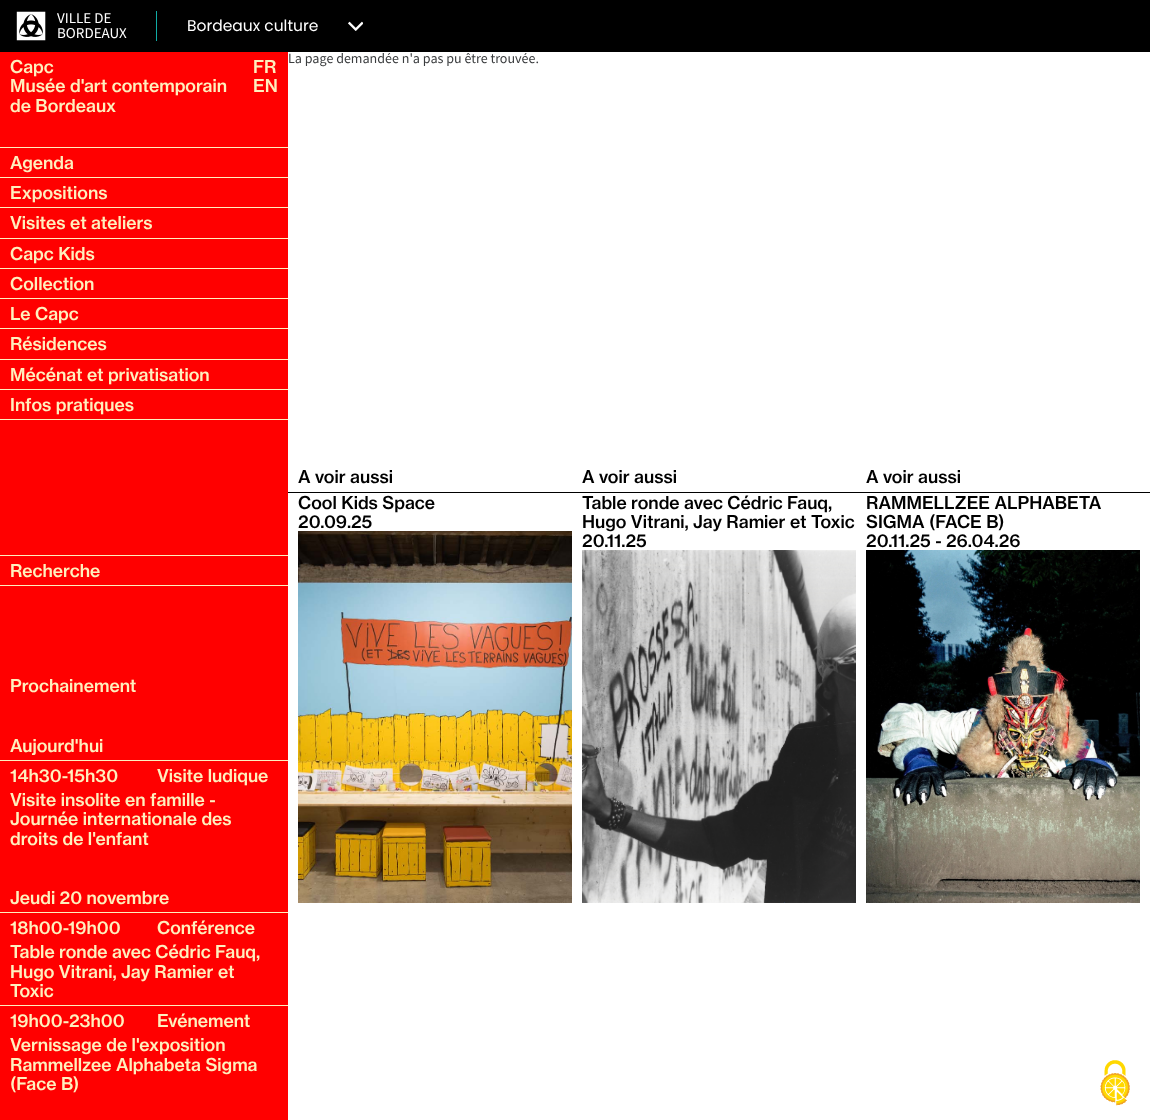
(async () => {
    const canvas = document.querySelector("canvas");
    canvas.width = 1150;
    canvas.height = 1120;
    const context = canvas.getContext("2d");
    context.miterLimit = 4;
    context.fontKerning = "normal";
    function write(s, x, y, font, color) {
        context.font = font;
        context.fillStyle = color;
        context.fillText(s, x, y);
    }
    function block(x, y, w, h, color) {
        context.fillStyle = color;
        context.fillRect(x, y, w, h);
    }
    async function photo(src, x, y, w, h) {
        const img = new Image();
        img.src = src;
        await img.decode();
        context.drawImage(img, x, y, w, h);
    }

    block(0, 0, 1150, 1120, "rgb(255, 255, 255)");
    block(0, 0, 1150, 52, "rgb(0, 0, 0)");
    await photo("media/1.png", 16, 11, 30, 30);
    block(156, 11, 1, 30, "rgb(16, 172, 165)");
    write("VILLE DE", 57, 23, "15px Source Sans Pro", "rgb(255, 255, 255)");
    write("BORDEAUX", 57, 38, "15px Source Sans Pro", "rgb(255, 255, 255)");
    write("Bordeaux culture", 187, 31, "15.5px Poppins", "rgb(255, 255, 255)");
    await photo("media/2.png", 348, 21, 15, 10);
    block(0, 52, 288, 1068, "rgb(255, 0, 0)");
    block(0, 147, 288, 1, "rgb(255, 240, 190)");
    write("Capc", 10, 73, "500 17.5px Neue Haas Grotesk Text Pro", "rgb(255, 240, 190)");
    write("Musée d'art contemporain", 10, 92, "500 17.5px Neue Haas Grotesk Text Pro", "rgb(255, 240, 190)");
    write("de Bordeaux", 10, 112, "500 17.5px Neue Haas Grotesk Text Pro", "rgb(255, 240, 190)");
    write("FR", 253, 73, "500 17.5px Neue Haas Grotesk Text Pro", "rgb(255, 240, 190)");
    write("EN", 253, 92, "500 17.5px Neue Haas Grotesk Text Pro", "rgb(255, 240, 190)");
    block(0, 177, 288, 1, "rgb(255, 240, 190)");
    write("Agenda", 10, 169, "500 17.5px Neue Haas Grotesk Text Pro", "rgb(255, 240, 190)");
    block(0, 207, 288, 1, "rgb(255, 240, 190)");
    write("Expositions", 10, 199, "500 17.5px Neue Haas Grotesk Text Pro", "rgb(255, 240, 190)");
    block(0, 238, 288, 1, "rgb(255, 240, 190)");
    write("Visites et ateliers", 10, 229, "500 17.5px Neue Haas Grotesk Text Pro", "rgb(255, 240, 190)");
    block(0, 268, 288, 1, "rgb(255, 240, 190)");
    write("Capc Kids", 10, 260, "500 17.5px Neue Haas Grotesk Text Pro", "rgb(255, 240, 190)");
    block(0, 298, 288, 1, "rgb(255, 240, 190)");
    write("Collection", 10, 290, "500 17.5px Neue Haas Grotesk Text Pro", "rgb(255, 240, 190)");
    block(0, 328, 288, 1, "rgb(255, 240, 190)");
    write("Le Capc", 10, 320, "500 17.5px Neue Haas Grotesk Text Pro", "rgb(255, 240, 190)");
    block(0, 359, 288, 1, "rgb(255, 240, 190)");
    write("Résidences", 10, 350, "500 17.5px Neue Haas Grotesk Text Pro", "rgb(255, 240, 190)");
    block(0, 389, 288, 1, "rgb(255, 240, 190)");
    write("Mécénat et privatisation", 10, 381, "500 17.5px Neue Haas Grotesk Text Pro", "rgb(255, 240, 190)");
    block(0, 419, 288, 1, "rgb(255, 240, 190)");
    write("Infos pratiques", 10, 411, "500 17.5px Neue Haas Grotesk Text Pro", "rgb(255, 240, 190)");
    block(0, 555, 288, 1, "rgb(255, 240, 190)");
    block(0, 585, 288, 1, "rgb(255, 240, 190)");
    write("Recherche", 10, 577, "500 17.5px Neue Haas Grotesk Text Pro", "rgb(255, 240, 190)");
    write("Prochainement", 10, 692, "500 17.5px Neue Haas Grotesk Text Pro", "rgb(255, 240, 190)");
    write("Aujourd'hui", 10, 752, "500 17.5px Neue Haas Grotesk Text Pro", "rgb(255, 240, 190)");
    block(0, 760, 288, 1, "rgb(255, 240, 190)");
    write("14h30-15h30", 10, 782, "500 17.5px Neue Haas Grotesk Text Pro", "rgb(255, 240, 190)");
    write("Visite ludique", 157, 782, "500 17.5px Neue Haas Grotesk Text Pro", "rgb(255, 240, 190)");
    write("Visite insolite en famille -", 10, 806, "500 17.5px Neue Haas Grotesk Text Pro", "rgb(255, 240, 190)");
    write("Journée internationale des", 10, 825, "500 17.5px Neue Haas Grotesk Text Pro", "rgb(255, 240, 190)");
    write("droits de l'enfant", 10, 845, "500 17.5px Neue Haas Grotesk Text Pro", "rgb(255, 240, 190)");
    write("Jeudi 20 novembre", 10, 904, "500 17.5px Neue Haas Grotesk Text Pro", "rgb(255, 240, 190)");
    block(0, 912, 288, 1, "rgb(255, 240, 190)");
    write("18h00-19h00", 10, 934, "500 17.5px Neue Haas Grotesk Text Pro", "rgb(255, 240, 190)");
    write("Conférence", 157, 934, "500 17.5px Neue Haas Grotesk Text Pro", "rgb(255, 240, 190)");
    write("Table ronde avec Cédric Fauq,", 10, 958, "500 17.5px Neue Haas Grotesk Text Pro", "rgb(255, 240, 190)");
    write("Hugo Vitrani, Jay Ramier et", 10, 978, "500 17.5px Neue Haas Grotesk Text Pro", "rgb(255, 240, 190)");
    write("Toxic", 10, 997, "500 17.5px Neue Haas Grotesk Text Pro", "rgb(255, 240, 190)");
    block(0, 1005, 288, 1, "rgb(255, 240, 190)");
    write("19h00-23h00", 10, 1027, "500 17.5px Neue Haas Grotesk Text Pro", "rgb(255, 240, 190)");
    write("Evénement", 157, 1027, "500 17.5px Neue Haas Grotesk Text Pro", "rgb(255, 240, 190)");
    write("Vernissage de l'exposition", 10, 1051, "500 17.5px Neue Haas Grotesk Text Pro", "rgb(255, 240, 190)");
    write("Rammellzee Alphabeta Sigma", 10, 1071, "500 17.5px Neue Haas Grotesk Text Pro", "rgb(255, 240, 190)");
    write("(Face B)", 10, 1090, "500 17.5px Neue Haas Grotesk Text Pro", "rgb(255, 240, 190)");
    write("La page demandée n'a pas pu être trouvée.", 288, 63, "14px Source Sans Pro", "rgb(58, 60, 62)");
    block(288, 492, 862, 1, "rgb(0, 0, 0)");
    write("A voir aussi", 298, 483, "500 17.5px Neue Haas Grotesk Text Pro", "rgb(0, 0, 0)");
    write("A voir aussi", 582, 483, "500 17.5px Neue Haas Grotesk Text Pro", "rgb(0, 0, 0)");
    write("A voir aussi", 866, 483, "500 17.5px Neue Haas Grotesk Text Pro", "rgb(0, 0, 0)");
    write("Cool Kids Space", 298, 509, "500 17.5px Neue Haas Grotesk Text Pro", "rgb(0, 0, 0)");
    write("20.09.25", 298, 528, "500 17.5px Neue Haas Grotesk Text Pro", "rgb(0, 0, 0)");
    await photo("media/3.png", 298, 531, 274, 372);
    write("Table ronde avec Cédric Fauq,", 582, 509, "500 17.5px Neue Haas Grotesk Text Pro", "rgb(0, 0, 0)");
    write("Hugo Vitrani, Jay Ramier et Toxic", 582, 528, "500 17.5px Neue Haas Grotesk Text Pro", "rgb(0, 0, 0)");
    write("20.11.25", 582, 547, "500 17.5px Neue Haas Grotesk Text Pro", "rgb(0, 0, 0)");
    await photo("media/4.png", 582, 550, 274, 353);
    write("RAMMELLZEE ALPHABETA", 866, 509, "500 17.5px Neue Haas Grotesk Text Pro", "rgb(0, 0, 0)");
    write("SIGMA (FACE B)", 866, 528, "500 17.5px Neue Haas Grotesk Text Pro", "rgb(0, 0, 0)");
    write("20.11.25 - 26.04.26", 866, 547, "500 17.5px Neue Haas Grotesk Text Pro", "rgb(0, 0, 0)");
    await photo("media/5.png", 866, 550, 274, 353);
    await photo("media/6.png", 1100, 1060, 30, 46);
})();
